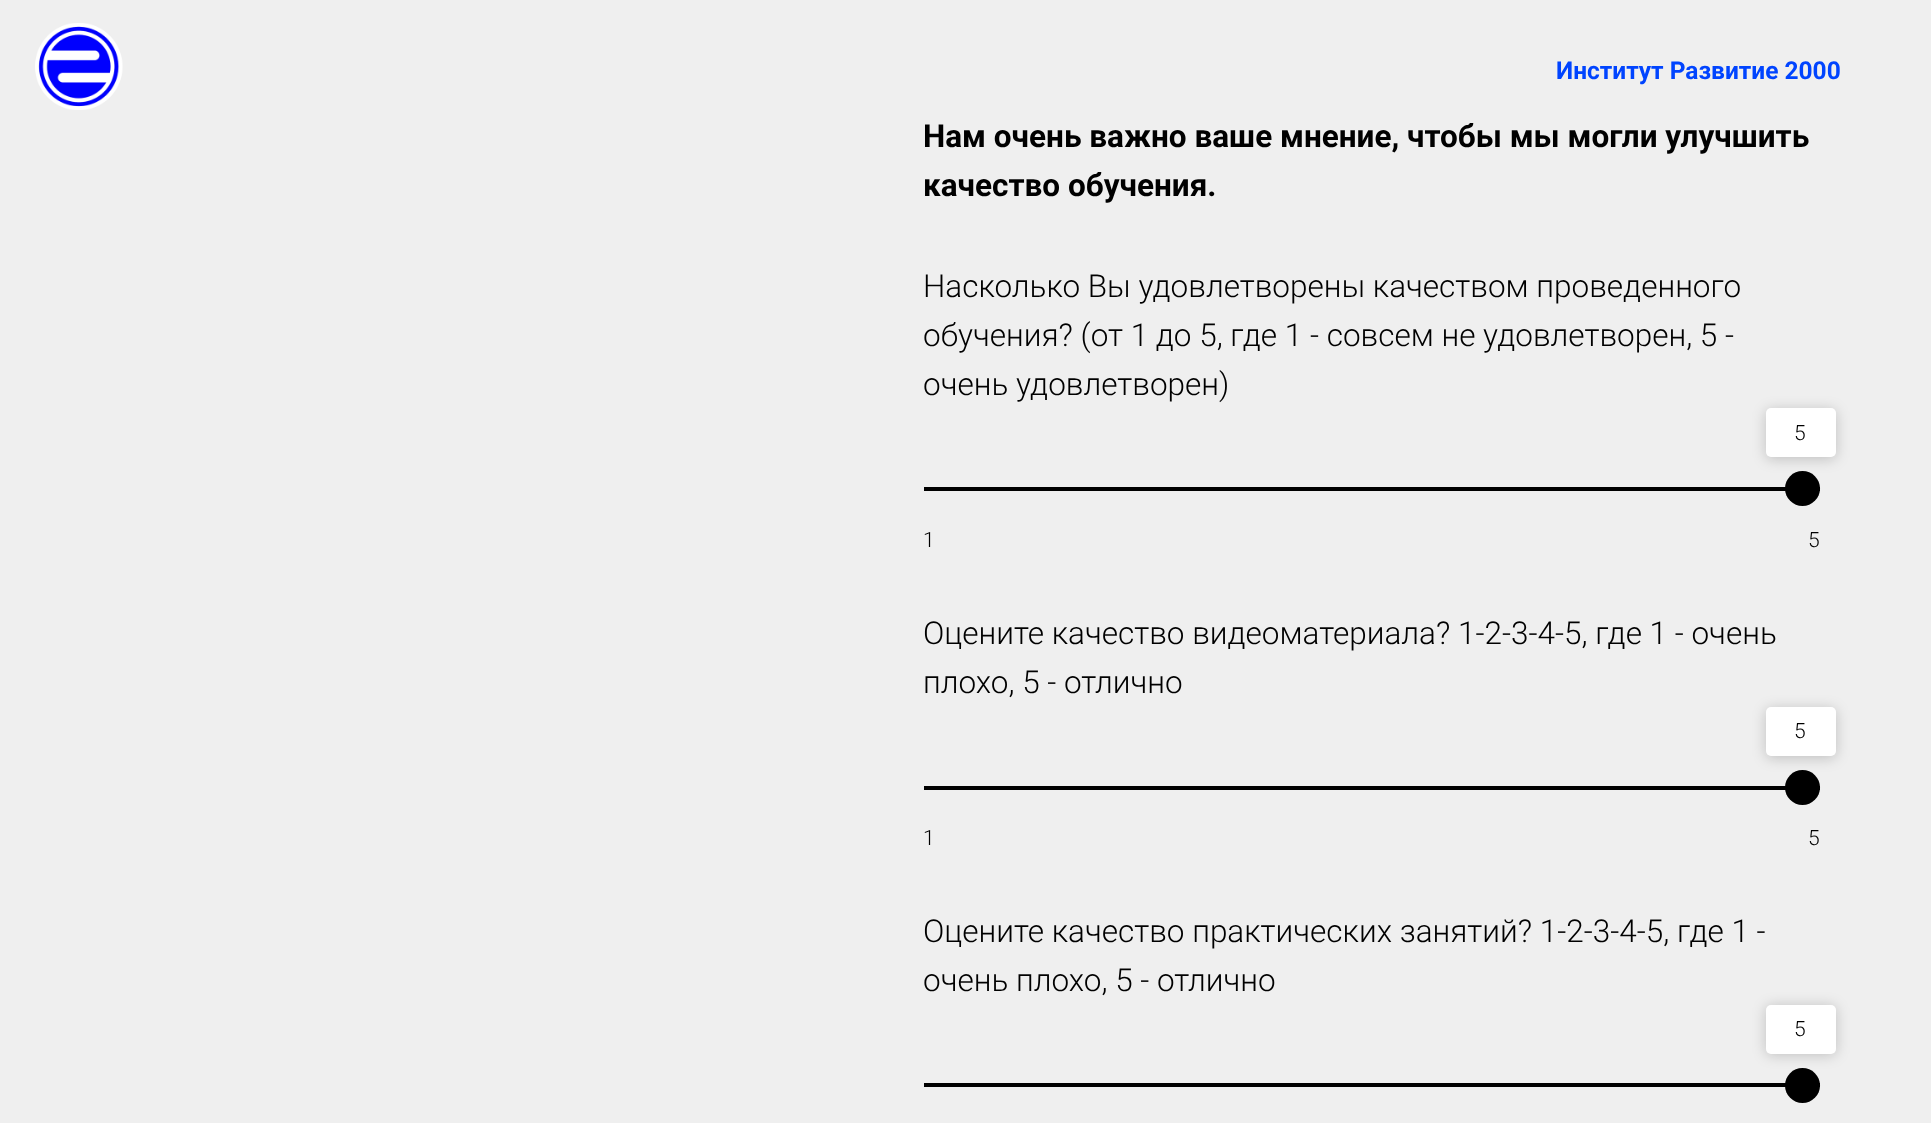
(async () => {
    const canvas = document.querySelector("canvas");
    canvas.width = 1931;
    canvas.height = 1123;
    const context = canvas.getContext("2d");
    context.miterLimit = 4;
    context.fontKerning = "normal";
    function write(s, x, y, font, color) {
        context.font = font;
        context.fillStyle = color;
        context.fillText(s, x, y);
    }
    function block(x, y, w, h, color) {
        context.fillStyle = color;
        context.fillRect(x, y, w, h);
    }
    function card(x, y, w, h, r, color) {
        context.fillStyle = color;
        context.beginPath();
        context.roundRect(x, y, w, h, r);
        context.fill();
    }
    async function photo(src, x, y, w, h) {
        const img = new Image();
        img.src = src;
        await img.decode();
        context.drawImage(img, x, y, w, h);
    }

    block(0, 0, 1931, 1123, "rgb(239, 239, 239)");
    await photo("media/1.png", 35, 23, 88, 87);
    write("Институт Развитие 2000", 1556, 79, "bold 24.5px Roboto", "rgb(0, 68, 255)");
    write("Нам очень важно ваше мнение, чтобы мы могли улучшить", 923, 147, "bold 31.5px Roboto", "rgb(0, 0, 0)");
    write("качество обучения.", 923, 196, "bold 31.5px Roboto", "rgb(0, 0, 0)");
    write("Насколько Вы удовлетворены качеством проведенного", 923, 297, "300 31.5px Roboto", "rgb(0, 0, 0)");
    write("обучения? (от 1 до 5, где 1 - совсем не удовлетворен, 5 -", 923, 346, "300 31.5px Roboto", "rgb(0, 0, 0)");
    write("очень удовлетворен)", 923, 395, "300 31.5px Roboto", "rgb(0, 0, 0)");
    block(924, 487, 896, 4, "rgb(0, 0, 0)");
    context.beginPath();
    context.arc(1802.5, 488.5, 17.5, 0, Math.PI * 2);
    context.fill();
    context.fillStyle = "rgba(0, 0, 0, 0.2)";
    context.filter = "blur(7px)";
    context.beginPath();
    context.roundRect(1766, 410, 70, 49, 5);
    context.fill();
    context.filter = "none";
    card(1766, 408, 70, 49, 5, "rgb(255, 255, 255)");
    write("5", 1794, 440, "300 21px Roboto", "rgb(0, 0, 0)");
    write("1", 923, 547, "300 21px Roboto", "rgb(0, 0, 0)");
    write("5", 1808, 547, "300 21px Roboto", "rgb(0, 0, 0)");
    write("Оцените качество видеоматериала? 1-2-3-4-5, где 1 - очень", 923, 644, "300 31.5px Roboto", "rgb(0, 0, 0)");
    write("плохо, 5 - отлично", 923, 693, "300 31.5px Roboto", "rgb(0, 0, 0)");
    block(924, 786, 896, 4, "rgb(0, 0, 0)");
    context.beginPath();
    context.arc(1802.5, 787.5, 17.5, 0, Math.PI * 2);
    context.fill();
    context.fillStyle = "rgba(0, 0, 0, 0.2)";
    context.filter = "blur(7px)";
    context.beginPath();
    context.roundRect(1766, 709, 70, 49, 5);
    context.fill();
    context.filter = "none";
    card(1766, 707, 70, 49, 5, "rgb(255, 255, 255)");
    write("5", 1794, 738, "300 21px Roboto", "rgb(0, 0, 0)");
    write("1", 923, 845, "300 21px Roboto", "rgb(0, 0, 0)");
    write("5", 1808, 845, "300 21px Roboto", "rgb(0, 0, 0)");
    write("Оцените качество практических занятий? 1-2-3-4-5, где 1 -", 923, 942, "300 31.5px Roboto", "rgb(0, 0, 0)");
    write("очень плохо, 5 - отлично", 923, 991, "300 31.5px Roboto", "rgb(0, 0, 0)");
    block(924, 1083, 896, 4, "rgb(0, 0, 0)");
    context.beginPath();
    context.arc(1802.5, 1085.5, 17.5, 0, Math.PI * 2);
    context.fill();
    context.fillStyle = "rgba(0, 0, 0, 0.2)";
    context.filter = "blur(7px)";
    context.beginPath();
    context.roundRect(1766, 1006, 70, 49, 5);
    context.fill();
    context.filter = "none";
    card(1766, 1005, 70, 49, 5, "rgb(255, 255, 255)");
    write("5", 1794, 1036, "300 21px Roboto", "rgb(0, 0, 0)");
})();
